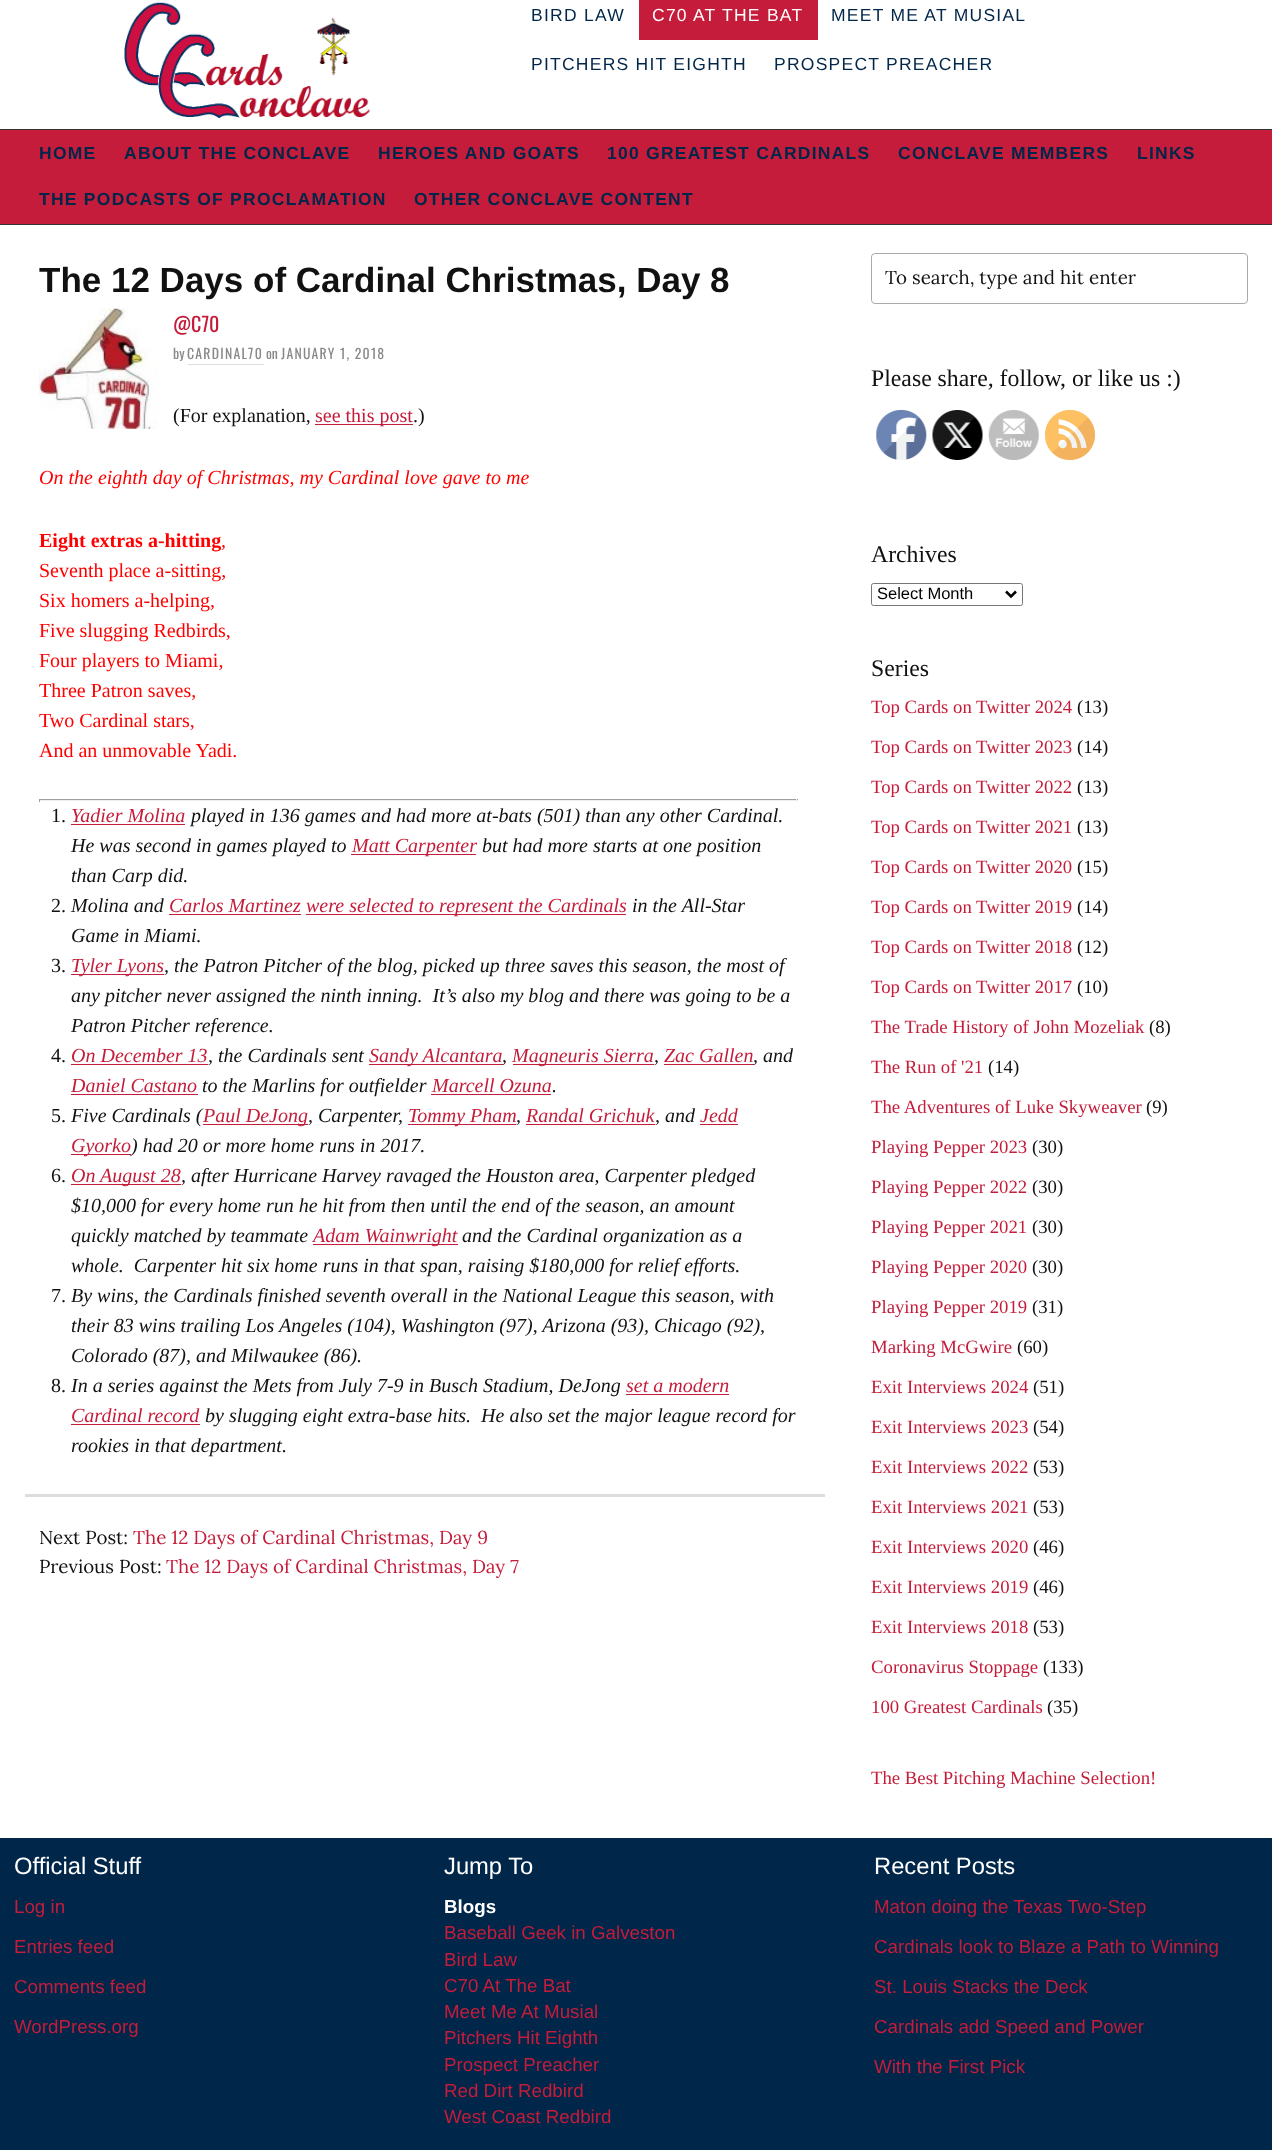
(async () => {
    const canvas = document.querySelector("canvas");
    canvas.width = 1272;
    canvas.height = 2150;
    const context = canvas.getContext("2d");
    context.miterLimit = 4;
    context.fontKerning = "normal";
    function write(s, x, y, font, color) {
        context.font = font;
        context.fillStyle = color;
        context.fillText(s, x, y);
    }
    function block(x, y, w, h, color) {
        context.fillStyle = color;
        context.fillRect(x, y, w, h);
    }
    async function photo(src, x, y, w, h) {
        const img = new Image();
        img.src = src;
        await img.decode();
        context.drawImage(img, x, y, w, h);
    }

    block(0, 0, 1272, 2150, "rgb(255, 255, 255)");
    await photo("media/1.png", 124, 2, 246, 117);
    context.letterSpacing = "1.25px";
    write("BIRD LAW", 531, 21, "17.5px Liberation Sans", "rgb(0, 38, 73)");
    block(639, 0, 179, 40, "rgb(196, 28, 58)");
    write("C70 AT THE BAT", 652, 21, "17.5px Liberation Sans", "rgb(255, 255, 255)");
    write("MEET ME AT MUSIAL", 831, 21, "17.5px Liberation Sans", "rgb(0, 38, 73)");
    write("PITCHERS HIT EIGHTH", 531, 70, "17.5px Liberation Sans", "rgb(0, 38, 73)");
    write("PROSPECT PREACHER", 774, 70, "17.5px Liberation Sans", "rgb(0, 38, 73)");
    block(0, 130, 1272, 94, "rgb(196, 28, 58)");
    block(0, 129, 1272, 1, "rgb(51, 51, 51)");
    block(0, 224, 1272, 1, "rgb(51, 51, 51)");
    write("HOME", 39, 159, "bold 17.5px Liberation Sans", "rgb(0, 38, 73)");
    write("ABOUT THE CONCLAVE", 124, 159, "bold 17.5px Liberation Sans", "rgb(0, 38, 73)");
    write("HEROES AND GOATS", 378, 159, "bold 17.5px Liberation Sans", "rgb(0, 38, 73)");
    write("100 GREATEST CARDINALS", 607, 159, "bold 17.5px Liberation Sans", "rgb(0, 38, 73)");
    write("CONCLAVE MEMBERS", 898, 159, "bold 17.5px Liberation Sans", "rgb(0, 38, 73)");
    write("LINKS", 1137, 159, "bold 17.5px Liberation Sans", "rgb(0, 38, 73)");
    write("THE PODCASTS OF PROCLAMATION", 39, 205, "bold 17.5px Liberation Sans", "rgb(0, 38, 73)");
    write("OTHER CONCLAVE CONTENT", 414, 205, "bold 17.5px Liberation Sans", "rgb(0, 38, 73)");
    context.letterSpacing = "0px";
    write("The 12 Days of Cardinal Christmas, Day 8", 39, 292, "bold 35px Liberation Sans", "rgb(17, 17, 17)");
    await photo("media/2.png", 38, 308, 121, 121);
    write("@C70", 173, 332, "20px Oswald", "rgb(196, 28, 58)");
    write("by", 173, 359, "13.75px Oswald", "rgb(136, 136, 136)");
    context.letterSpacing = "1.25px";
    write("CARDINAL70", 187, 359, "13.75px Oswald", "rgb(136, 136, 136)");
    block(188, 364, 76, 1, "rgb(221, 221, 221)");
    context.letterSpacing = "0px";
    write("on", 266, 359, "13.75px Oswald", "rgb(136, 136, 136)");
    context.letterSpacing = "1.25px";
    write("JANUARY 1, 2018", 281, 359, "13.75px Oswald", "rgb(136, 136, 136)");
    context.letterSpacing = "0px";
    write("(For explanation,", 173, 422, "20px Liberation Serif", "rgb(17, 17, 17)");
    block(315, 424, 98, 1, "rgb(196, 28, 58)");
    write("see this post", 315, 422, "20px Liberation Serif", "rgb(196, 28, 58)");
    write(".)", 413, 422, "20px Liberation Serif", "rgb(17, 17, 17)");
    write("On the eighth day of Christmas, my Cardinal love gave to me", 39, 484, "italic 20px Liberation Serif", "rgb(255, 0, 0)");
    write("Eight extras a-hitting", 39, 547, "bold 20px Liberation Serif", "rgb(255, 0, 0)");
    write(",", 221, 547, "20px Liberation Serif", "rgb(255, 0, 0)");
    write("Seventh place a-sitting,", 39, 577, "20px Liberation Serif", "rgb(255, 0, 0)");
    write("Six homers a-helping,", 39, 607, "20px Liberation Serif", "rgb(255, 0, 0)");
    write("Five slugging Redbirds,", 39, 637, "20px Liberation Serif", "rgb(255, 0, 0)");
    write("Four players to Miami,", 39, 667, "20px Liberation Serif", "rgb(255, 0, 0)");
    write("Three Patron saves,", 39, 697, "20px Liberation Serif", "rgb(255, 0, 0)");
    write("Two Cardinal stars,", 39, 727, "20px Liberation Serif", "rgb(255, 0, 0)");
    write("And an unmovable Yadi.", 39, 757, "20px Liberation Serif", "rgb(255, 0, 0)");
    block(39, 799, 759, 1, "rgb(159, 159, 159)");
    block(796, 799, 1, 3, "rgb(238, 238, 238)");
    block(39, 800, 759, 1, "rgb(238, 238, 238)");
    block(39, 799, 1, 3, "rgb(159, 159, 159)");
    write("1.", 51, 822, "20px Liberation Serif", "rgb(17, 17, 17)");
    write("Yadier Molina", 71, 822, "italic 20px Liberation Serif", "rgb(196, 28, 58)");
    block(71, 824, 114, 1, "rgb(196, 28, 58)");
    write("played in 136 games and had more at-bats (501) than any other Cardinal.", 191, 822, "italic 20px Liberation Serif", "rgb(17, 17, 17)");
    write("He was second in games played to", 71, 852, "italic 20px Liberation Serif", "rgb(17, 17, 17)");
    block(351, 854, 125, 1, "rgb(196, 28, 58)");
    write("Matt Carpenter", 352, 852, "italic 20px Liberation Serif", "rgb(196, 28, 58)");
    write("but had more starts at one position", 482, 852, "italic 20px Liberation Serif", "rgb(17, 17, 17)");
    write("than Carp did.", 71, 882, "italic 20px Liberation Serif", "rgb(17, 17, 17)");
    write("2.", 51, 912, "20px Liberation Serif", "rgb(17, 17, 17)");
    write("Molina and", 71, 912, "italic 20px Liberation Serif", "rgb(17, 17, 17)");
    write("Carlos Martinez", 169, 912, "italic 20px Liberation Serif", "rgb(196, 28, 58)");
    block(169, 914, 132, 1, "rgb(196, 28, 58)");
    block(306, 914, 320, 1, "rgb(196, 28, 58)");
    write("were selected to represent the Cardinals", 306, 912, "italic 20px Liberation Serif", "rgb(196, 28, 58)");
    write("in the All-Star", 632, 912, "italic 20px Liberation Serif", "rgb(17, 17, 17)");
    write("Game in Miami.", 71, 942, "italic 20px Liberation Serif", "rgb(17, 17, 17)");
    write("3.", 51, 972, "20px Liberation Serif", "rgb(17, 17, 17)");
    block(71, 974, 93, 1, "rgb(196, 28, 58)");
    write("Tyler Lyons", 71, 972, "italic 20px Liberation Serif", "rgb(196, 28, 58)");
    write(", the Patron Pitcher of the blog, picked up three saves this season, the most of", 164, 972, "italic 20px Liberation Serif", "rgb(17, 17, 17)");
    write("any pitcher never assigned the ninth inning.  It’s also my blog and there was going to be a", 71, 1002, "italic 20px Liberation Serif", "rgb(17, 17, 17)");
    write("Patron Pitcher reference.", 71, 1032, "italic 20px Liberation Serif", "rgb(17, 17, 17)");
    write("4.", 51, 1062, "20px Liberation Serif", "rgb(17, 17, 17)");
    write("On December 13", 71, 1062, "italic 20px Liberation Serif", "rgb(196, 28, 58)");
    write(", the Cardinals sent", 208, 1062, "italic 20px Liberation Serif", "rgb(17, 17, 17)");
    block(71, 1064, 137, 1, "rgb(196, 28, 58)");
    block(369, 1064, 134, 1, "rgb(196, 28, 58)");
    write("Sandy Alcantara", 369, 1062, "italic 20px Liberation Serif", "rgb(196, 28, 58)");
    write(",", 502, 1062, "italic 20px Liberation Serif", "rgb(17, 17, 17)");
    block(513, 1064, 141, 1, "rgb(196, 28, 58)");
    write("Magneuris Sierra", 512, 1062, "italic 20px Liberation Serif", "rgb(196, 28, 58)");
    write(",", 654, 1062, "italic 20px Liberation Serif", "rgb(17, 17, 17)");
    block(664, 1064, 90, 1, "rgb(196, 28, 58)");
    write("Zac Gallen", 664, 1062, "italic 20px Liberation Serif", "rgb(196, 28, 58)");
    write(", and", 753, 1062, "italic 20px Liberation Serif", "rgb(17, 17, 17)");
    write("Daniel Castano", 71, 1092, "italic 20px Liberation Serif", "rgb(196, 28, 58)");
    block(71, 1094, 127, 1, "rgb(196, 28, 58)");
    write("to the Marlins for outfielder", 202, 1092, "italic 20px Liberation Serif", "rgb(17, 17, 17)");
    write("Marcell Ozuna", 432, 1092, "italic 20px Liberation Serif", "rgb(196, 28, 58)");
    write(".", 552, 1092, "italic 20px Liberation Serif", "rgb(17, 17, 17)");
    block(431, 1094, 120, 1, "rgb(196, 28, 58)");
    write("5.", 51, 1122, "20px Liberation Serif", "rgb(17, 17, 17)");
    write("Five Cardinals (", 71, 1122, "italic 20px Liberation Serif", "rgb(17, 17, 17)");
    block(203, 1124, 105, 1, "rgb(196, 28, 58)");
    write("Paul DeJong", 203, 1122, "italic 20px Liberation Serif", "rgb(196, 28, 58)");
    write(", Carpenter,", 308, 1122, "italic 20px Liberation Serif", "rgb(17, 17, 17)");
    block(408, 1124, 108, 1, "rgb(196, 28, 58)");
    write("Tommy Pham", 408, 1122, "italic 20px Liberation Serif", "rgb(196, 28, 58)");
    write(",", 516, 1122, "italic 20px Liberation Serif", "rgb(17, 17, 17)");
    block(526, 1124, 129, 1, "rgb(196, 28, 58)");
    write("Randal Grichuk", 526, 1122, "italic 20px Liberation Serif", "rgb(196, 28, 58)");
    write(", and", 655, 1122, "italic 20px Liberation Serif", "rgb(17, 17, 17)");
    write("Jedd", 700, 1122, "italic 20px Liberation Serif", "rgb(196, 28, 58)");
    block(700, 1124, 38, 1, "rgb(196, 28, 58)");
    block(71, 1154, 60, 1, "rgb(196, 28, 58)");
    write("Gyorko", 71, 1152, "italic 20px Liberation Serif", "rgb(196, 28, 58)");
    write(") had 20 or more home runs in 2017.", 131, 1152, "italic 20px Liberation Serif", "rgb(17, 17, 17)");
    write("6.", 51, 1182, "20px Liberation Serif", "rgb(17, 17, 17)");
    block(71, 1184, 110, 1, "rgb(196, 28, 58)");
    write("On August 28", 71, 1182, "italic 20px Liberation Serif", "rgb(196, 28, 58)");
    write(", after Hurricane Harvey ravaged the Houston area, Carpenter pledged", 181, 1182, "italic 20px Liberation Serif", "rgb(17, 17, 17)");
    write("$10,000 for every home run he hit from then until the end of the season, an amount", 71, 1212, "italic 20px Liberation Serif", "rgb(17, 17, 17)");
    write("quickly matched by teammate", 71, 1242, "italic 20px Liberation Serif", "rgb(17, 17, 17)");
    block(313, 1244, 145, 1, "rgb(196, 28, 58)");
    write("Adam Wainwright", 313, 1242, "italic 20px Liberation Serif", "rgb(196, 28, 58)");
    write("and the Cardinal organization as a", 462, 1242, "italic 20px Liberation Serif", "rgb(17, 17, 17)");
    write("whole.  Carpenter hit six home runs in that span, raising $180,000 for relief efforts.", 71, 1272, "italic 20px Liberation Serif", "rgb(17, 17, 17)");
    write("7.", 51, 1302, "20px Liberation Serif", "rgb(17, 17, 17)");
    write("By wins, the Cardinals finished seventh overall in the National League this season, with", 71, 1302, "italic 20px Liberation Serif", "rgb(17, 17, 17)");
    write("their 83 wins trailing Los Angeles (104), Washington (97), Arizona (93), Chicago (92),", 71, 1332, "italic 20px Liberation Serif", "rgb(17, 17, 17)");
    write("Colorado (87), and Milwaukee (86).", 71, 1362, "italic 20px Liberation Serif", "rgb(17, 17, 17)");
    write("8.", 51, 1392, "20px Liberation Serif", "rgb(17, 17, 17)");
    write("In a series against the Mets from July 7-9 in Busch Stadium, DeJong", 71, 1392, "italic 20px Liberation Serif", "rgb(17, 17, 17)");
    write("set a modern", 626, 1392, "italic 20px Liberation Serif", "rgb(196, 28, 58)");
    block(626, 1394, 103, 1, "rgb(196, 28, 58)");
    write("Cardinal record", 71, 1422, "italic 20px Liberation Serif", "rgb(196, 28, 58)");
    block(71, 1424, 129, 1, "rgb(196, 28, 58)");
    write("by slugging eight extra-base hits.  He also set the major league record for", 205, 1422, "italic 20px Liberation Serif", "rgb(17, 17, 17)");
    write("rookies in that department.", 71, 1452, "italic 20px Liberation Serif", "rgb(17, 17, 17)");
    block(25, 1494, 800, 3, "rgb(221, 221, 221)");
    write("Next Post:", 39, 1544, "18.75px Lora", "rgb(17, 17, 17)");
    write("The 12 Days of Cardinal Christmas, Day 9", 133, 1544, "18.75px Lora", "rgb(196, 28, 58)");
    write("Previous Post:", 39, 1573, "18.75px Lora", "rgb(17, 17, 17)");
    write("The 12 Days of Cardinal Christmas, Day 7", 166, 1573, "18.75px Lora", "rgb(196, 28, 58)");
    context.beginPath();
    context.roundRect(871.5, 253.5, 376, 50, 3.5);
    context.strokeStyle = "rgb(170, 170, 170)";
    context.stroke();
    write("To search, type and hit enter", 885, 284, "18.75px Lora", "rgb(17, 17, 17)");
    write("Please share, follow, or like us :)", 871, 386, "23.75px Liberation Serif", "rgb(17, 17, 17)");
    await photo("media/3.png", 876, 410, 51, 50);
    await photo("media/4.png", 932, 410, 51, 50);
    await photo("media/5.png", 988, 410, 51, 50);
    await photo("media/6.png", 1045, 410, 50, 50);
    write("Archives", 871, 562, "23.75px Liberation Serif", "rgb(17, 17, 17)");
    context.beginPath();
    context.roundRect(871.5, 583.5, 151, 22, 2);
    context.strokeStyle = "rgb(118, 118, 118)";
    context.stroke();
    context.beginPath();
    context.moveTo(1006, 591.5);
    context.lineTo(1011, 596.5);
    context.lineTo(1016, 591.5);
    context.strokeStyle = "rgb(0, 0, 0)";
    context.lineWidth = 2.5;
    context.stroke();
    write("Select Month", 877, 599, "16.5px Liberation Sans", "rgb(0, 0, 0)");
    write("Series", 871, 676, "23.75px Liberation Serif", "rgb(17, 17, 17)");
    write("Top Cards on Twitter 2024", 871, 713, "18.75px Liberation Serif", "rgb(196, 28, 58)");
    write("(13)", 1077, 713, "18.75px Liberation Serif", "rgb(17, 17, 17)");
    write("Top Cards on Twitter 2023", 871, 753, "18.75px Liberation Serif", "rgb(196, 28, 58)");
    write("(14)", 1077, 753, "18.75px Liberation Serif", "rgb(17, 17, 17)");
    write("Top Cards on Twitter 2022", 871, 793, "18.75px Liberation Serif", "rgb(196, 28, 58)");
    write("(13)", 1077, 793, "18.75px Liberation Serif", "rgb(17, 17, 17)");
    write("Top Cards on Twitter 2021", 871, 833, "18.75px Liberation Serif", "rgb(196, 28, 58)");
    write("(13)", 1077, 833, "18.75px Liberation Serif", "rgb(17, 17, 17)");
    write("Top Cards on Twitter 2020", 871, 873, "18.75px Liberation Serif", "rgb(196, 28, 58)");
    write("(15)", 1077, 873, "18.75px Liberation Serif", "rgb(17, 17, 17)");
    write("Top Cards on Twitter 2019", 871, 913, "18.75px Liberation Serif", "rgb(196, 28, 58)");
    write("(14)", 1077, 913, "18.75px Liberation Serif", "rgb(17, 17, 17)");
    write("Top Cards on Twitter 2018", 871, 953, "18.75px Liberation Serif", "rgb(196, 28, 58)");
    write("(12)", 1077, 953, "18.75px Liberation Serif", "rgb(17, 17, 17)");
    write("Top Cards on Twitter 2017", 871, 993, "18.75px Liberation Serif", "rgb(196, 28, 58)");
    write("(10)", 1077, 993, "18.75px Liberation Serif", "rgb(17, 17, 17)");
    write("The Trade History of John Mozeliak", 871, 1033, "18.75px Liberation Serif", "rgb(196, 28, 58)");
    write("(8)", 1149, 1033, "18.75px Liberation Serif", "rgb(17, 17, 17)");
    write("The Run of '21", 871, 1073, "18.75px Liberation Serif", "rgb(196, 28, 58)");
    write("(14)", 988, 1073, "18.75px Liberation Serif", "rgb(17, 17, 17)");
    write("The Adventures of Luke Skyweaver", 871, 1113, "18.75px Liberation Serif", "rgb(196, 28, 58)");
    write("(9)", 1146, 1113, "18.75px Liberation Serif", "rgb(17, 17, 17)");
    write("Playing Pepper 2023", 871, 1153, "18.75px Liberation Serif", "rgb(196, 28, 58)");
    write("(30)", 1032, 1153, "18.75px Liberation Serif", "rgb(17, 17, 17)");
    write("Playing Pepper 2022", 871, 1193, "18.75px Liberation Serif", "rgb(196, 28, 58)");
    write("(30)", 1032, 1193, "18.75px Liberation Serif", "rgb(17, 17, 17)");
    write("Playing Pepper 2021", 871, 1233, "18.75px Liberation Serif", "rgb(196, 28, 58)");
    write("(30)", 1032, 1233, "18.75px Liberation Serif", "rgb(17, 17, 17)");
    write("Playing Pepper 2020", 871, 1273, "18.75px Liberation Serif", "rgb(196, 28, 58)");
    write("(30)", 1032, 1273, "18.75px Liberation Serif", "rgb(17, 17, 17)");
    write("Playing Pepper 2019", 871, 1313, "18.75px Liberation Serif", "rgb(196, 28, 58)");
    write("(31)", 1032, 1313, "18.75px Liberation Serif", "rgb(17, 17, 17)");
    write("Marking McGwire", 871, 1353, "18.75px Liberation Serif", "rgb(196, 28, 58)");
    write("(60)", 1017, 1353, "18.75px Liberation Serif", "rgb(17, 17, 17)");
    write("Exit Interviews 2024", 871, 1393, "18.75px Liberation Serif", "rgb(196, 28, 58)");
    write("(51)", 1033, 1393, "18.75px Liberation Serif", "rgb(17, 17, 17)");
    write("Exit Interviews 2023", 871, 1433, "18.75px Liberation Serif", "rgb(196, 28, 58)");
    write("(54)", 1033, 1433, "18.75px Liberation Serif", "rgb(17, 17, 17)");
    write("Exit Interviews 2022", 871, 1473, "18.75px Liberation Serif", "rgb(196, 28, 58)");
    write("(53)", 1033, 1473, "18.75px Liberation Serif", "rgb(17, 17, 17)");
    write("Exit Interviews 2021", 871, 1513, "18.75px Liberation Serif", "rgb(196, 28, 58)");
    write("(53)", 1033, 1513, "18.75px Liberation Serif", "rgb(17, 17, 17)");
    write("Exit Interviews 2020", 871, 1553, "18.75px Liberation Serif", "rgb(196, 28, 58)");
    write("(46)", 1033, 1553, "18.75px Liberation Serif", "rgb(17, 17, 17)");
    write("Exit Interviews 2019", 871, 1593, "18.75px Liberation Serif", "rgb(196, 28, 58)");
    write("(46)", 1033, 1593, "18.75px Liberation Serif", "rgb(17, 17, 17)");
    write("Exit Interviews 2018", 871, 1633, "18.75px Liberation Serif", "rgb(196, 28, 58)");
    write("(53)", 1033, 1633, "18.75px Liberation Serif", "rgb(17, 17, 17)");
    write("Coronavirus Stoppage", 871, 1673, "18.75px Liberation Serif", "rgb(196, 28, 58)");
    write("(133)", 1043, 1673, "18.75px Liberation Serif", "rgb(17, 17, 17)");
    write("100 Greatest Cardinals", 871, 1713, "18.75px Liberation Serif", "rgb(196, 28, 58)");
    write("(35)", 1047, 1713, "18.75px Liberation Serif", "rgb(17, 17, 17)");
    write("The Best Pitching Machine Selection!", 871, 1784, "18.75px Liberation Serif", "rgb(196, 28, 58)");
    block(0, 1838, 1272, 312, "rgb(0, 38, 73)");
    write("Official Stuff", 14, 1874, "23.75px Liberation Sans", "rgb(255, 255, 255)");
    write("Log in", 14, 1913, "18.75px Liberation Sans", "rgb(196, 28, 58)");
    write("Entries feed", 14, 1953, "18.75px Liberation Sans", "rgb(196, 28, 58)");
    write("Comments feed", 14, 1993, "18.75px Liberation Sans", "rgb(196, 28, 58)");
    write("WordPress.org", 14, 2033, "18.75px Liberation Sans", "rgb(196, 28, 58)");
    write("Jump To", 444, 1874, "23.75px Liberation Sans", "rgb(255, 255, 255)");
    write("Blogs", 444, 1913, "bold 18.75px Liberation Sans", "rgb(255, 255, 255)");
    write("Baseball Geek in Galveston", 444, 1939, "18.75px Liberation Sans", "rgb(196, 28, 58)");
    write("Bird Law", 444, 1966, "18.75px Liberation Sans", "rgb(196, 28, 58)");
    write("C70 At The Bat", 444, 1992, "18.75px Liberation Sans", "rgb(196, 28, 58)");
    write("Meet Me At Musial", 444, 2018, "18.75px Liberation Sans", "rgb(196, 28, 58)");
    write("Pitchers Hit Eighth", 444, 2044, "18.75px Liberation Sans", "rgb(196, 28, 58)");
    write("Prospect Preacher", 444, 2071, "18.75px Liberation Sans", "rgb(196, 28, 58)");
    write("Red Dirt Redbird", 444, 2097, "18.75px Liberation Sans", "rgb(196, 28, 58)");
    write("West Coast Redbird", 444, 2123, "18.75px Liberation Sans", "rgb(196, 28, 58)");
    write("Recent Posts", 874, 1874, "23.75px Liberation Sans", "rgb(255, 255, 255)");
    write("Maton doing the Texas Two-Step", 874, 1913, "18.75px Liberation Sans", "rgb(196, 28, 58)");
    write("Cardinals look to Blaze a Path to Winning", 874, 1953, "18.75px Liberation Sans", "rgb(196, 28, 58)");
    write("St. Louis Stacks the Deck", 874, 1993, "18.75px Liberation Sans", "rgb(196, 28, 58)");
    write("Cardinals add Speed and Power", 874, 2033, "18.75px Liberation Sans", "rgb(196, 28, 58)");
    write("With the First Pick", 874, 2073, "18.75px Liberation Sans", "rgb(196, 28, 58)");
})();
